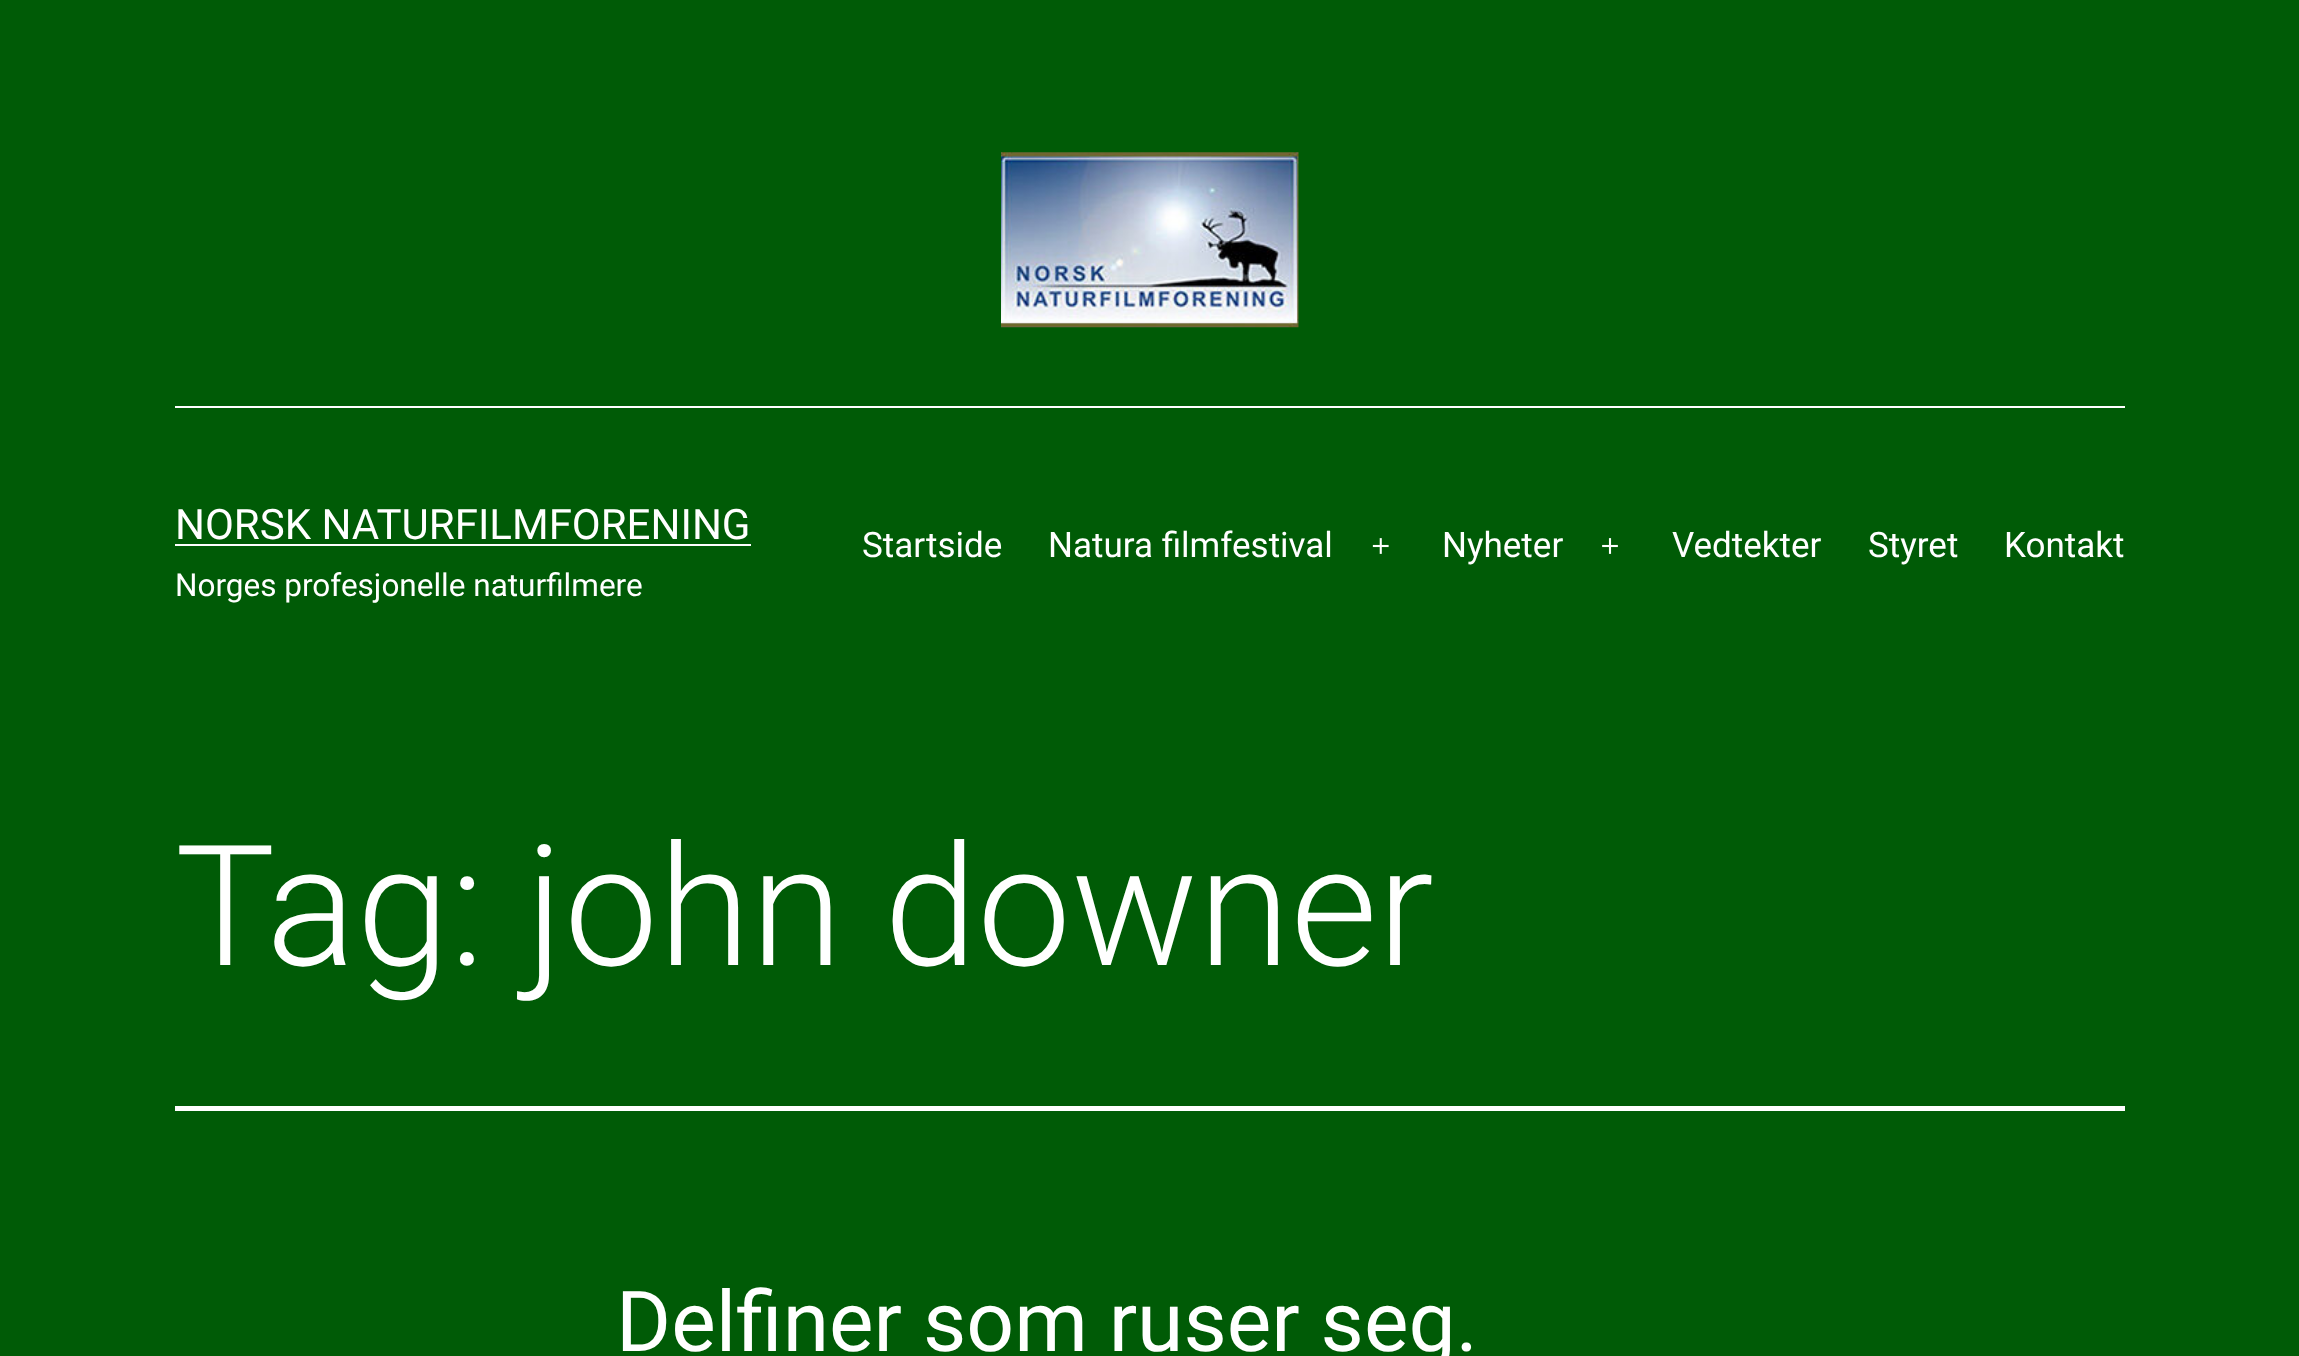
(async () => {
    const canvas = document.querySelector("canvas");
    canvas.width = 2299;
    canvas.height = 1356;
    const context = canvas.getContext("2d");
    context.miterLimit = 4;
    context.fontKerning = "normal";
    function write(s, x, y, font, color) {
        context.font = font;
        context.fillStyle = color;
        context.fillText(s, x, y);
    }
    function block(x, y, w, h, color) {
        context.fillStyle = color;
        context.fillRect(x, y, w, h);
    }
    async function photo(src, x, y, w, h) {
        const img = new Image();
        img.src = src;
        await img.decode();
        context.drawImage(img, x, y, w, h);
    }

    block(0, 0, 2299, 1356, "rgb(0, 91, 6)");
    block(175, 406, 1950, 2, "rgb(255, 255, 255)");
    await photo("media/1.png", 1001, 152, 298, 176);
    write("NORSK NATURFILMFORENING", 175, 539, "42px Roboto", "rgb(255, 255, 255)");
    block(175, 544, 576, 2, "rgb(255, 255, 255)");
    write("Norges profesjonelle naturfilmere", 175, 596, "31.5px Roboto", "rgb(255, 255, 255)");
    write("Startside", 862, 557, "35px Roboto", "rgb(255, 255, 255)");
    write("Natura filmfestival", 1048, 557, "35px Roboto", "rgb(255, 255, 255)");
    await photo("media/2.png", 1372, 538, 17, 16);
    write("Nyheter", 1442, 557, "35px Roboto", "rgb(255, 255, 255)");
    await photo("media/3.png", 1602, 538, 16, 16);
    write("Vedtekter", 1672, 557, "35px Roboto", "rgb(255, 255, 255)");
    write("Styret", 1868, 557, "35px Roboto", "rgb(255, 255, 255)");
    write("Kontakt", 2004, 557, "35px Roboto", "rgb(255, 255, 255)");
    block(175, 1106, 1950, 5, "rgb(255, 255, 255)");
    write("Tag: john downer", 175, 965, "300 168px Roboto", "rgb(255, 255, 255)");
    write("Delfiner som ruser seg.", 616, 1351, "84px Roboto", "rgb(255, 255, 255)");
})();
